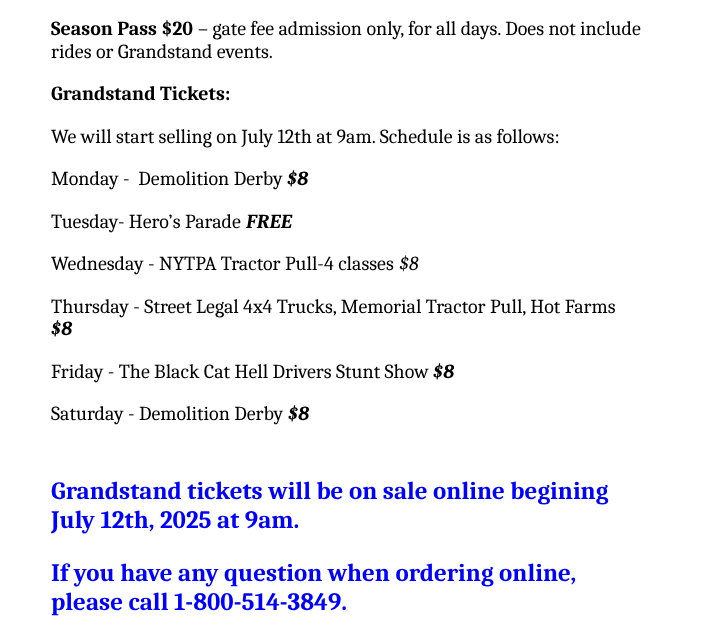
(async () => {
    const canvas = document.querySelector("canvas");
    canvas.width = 710;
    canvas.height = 632;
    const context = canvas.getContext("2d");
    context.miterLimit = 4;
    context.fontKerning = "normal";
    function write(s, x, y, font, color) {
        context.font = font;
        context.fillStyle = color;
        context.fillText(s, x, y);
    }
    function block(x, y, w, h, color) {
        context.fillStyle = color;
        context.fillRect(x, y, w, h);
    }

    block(0, 0, 710, 632, "rgb(255, 255, 255)");
    write("Season Pass $20", 51, 35, "bold 20px Caladea", "rgb(0, 0, 0)");
    write("– gate fee admission only, for all days. Does not include", 198, 35, "20px Caladea", "rgb(0, 0, 0)");
    write("rides or Grandstand events.", 51, 58, "20px Caladea", "rgb(0, 0, 0)");
    write("Grandstand Tickets:", 51, 100, "bold 20px Caladea", "rgb(0, 0, 0)");
    write("We will start selling on July 12th at 9am. Schedule is as follows:", 51, 143, "20px Caladea", "rgb(0, 0, 0)");
    write("Monday -  Demolition Derby", 51, 185, "20px Caladea", "rgb(0, 0, 0)");
    write("$8", 287, 185, "italic bold 20px Caladea", "rgb(0, 0, 0)");
    write("Tuesday- Hero’s Parade", 51, 228, "20px Caladea", "rgb(0, 0, 0)");
    write("FREE", 246, 228, "italic bold 20px Caladea", "rgb(0, 0, 0)");
    write("Wednesday - NYTPA Tractor Pull-4 classes", 51, 270, "20px Caladea", "rgb(0, 0, 0)");
    write("$8", 399, 270, "italic 20px Caladea", "rgb(0, 0, 0)");
    write("Thursday - Street Legal 4x4 Trucks, Memorial Tractor Pull, Hot Farms", 51, 313, "20px Caladea", "rgb(0, 0, 0)");
    write("$8", 51, 335, "italic bold 20px Caladea", "rgb(0, 0, 0)");
    write("Friday - The Black Cat Hell Drivers Stunt Show", 51, 378, "20px Caladea", "rgb(0, 0, 0)");
    write("$8", 433, 378, "italic bold 20px Caladea", "rgb(0, 0, 0)");
    write("Saturday - Demolition Derby", 51, 420, "20px Caladea", "rgb(0, 0, 0)");
    write("$8", 288, 420, "italic bold 20px Caladea", "rgb(0, 0, 0)");
    write("Grandstand tickets will be on sale online begining", 51, 499, "bold 25px Caladea", "rgb(0, 0, 255)");
    write("July 12th, 2025 at 9am.", 51, 528, "bold 25px Caladea", "rgb(0, 0, 255)");
    write("If you have any question when ordering online,", 51, 581, "bold 25px Caladea", "rgb(0, 0, 255)");
    write("please call 1-800-514-3849.", 51, 610, "bold 25px Caladea", "rgb(0, 0, 255)");
})();
